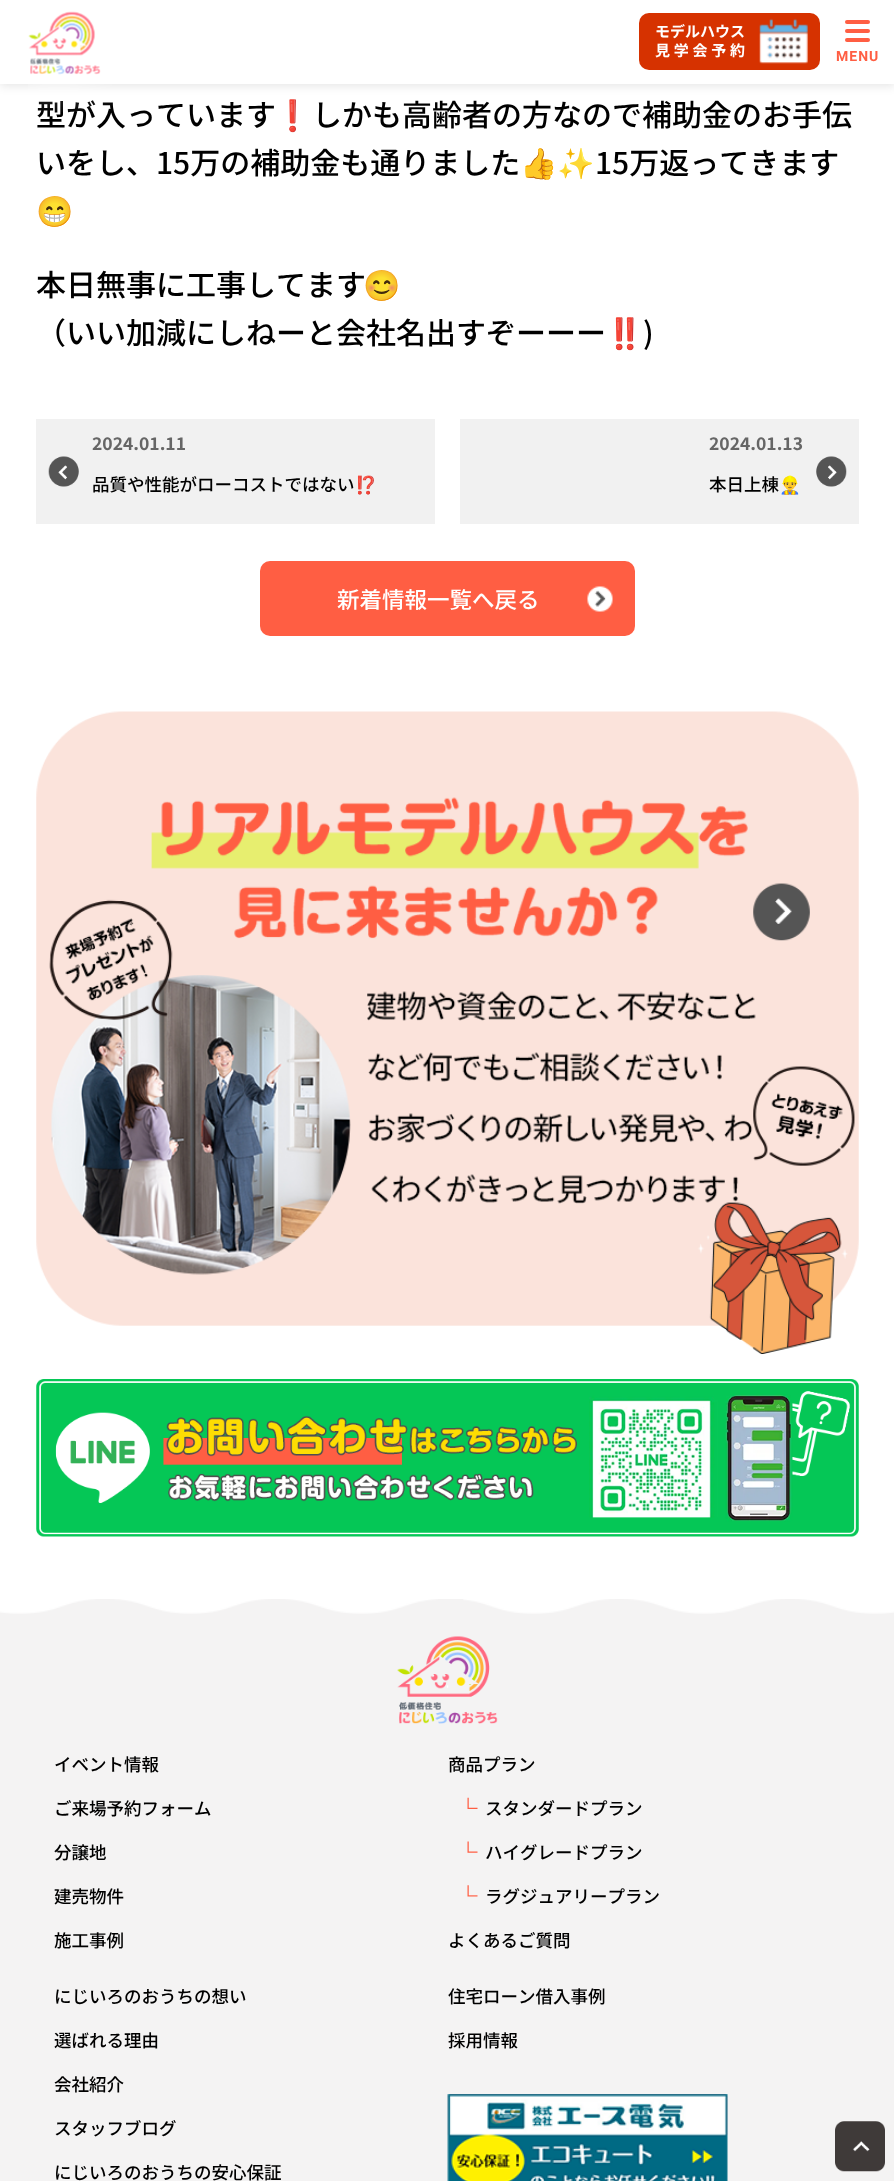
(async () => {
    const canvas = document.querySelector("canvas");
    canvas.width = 894;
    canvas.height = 2181;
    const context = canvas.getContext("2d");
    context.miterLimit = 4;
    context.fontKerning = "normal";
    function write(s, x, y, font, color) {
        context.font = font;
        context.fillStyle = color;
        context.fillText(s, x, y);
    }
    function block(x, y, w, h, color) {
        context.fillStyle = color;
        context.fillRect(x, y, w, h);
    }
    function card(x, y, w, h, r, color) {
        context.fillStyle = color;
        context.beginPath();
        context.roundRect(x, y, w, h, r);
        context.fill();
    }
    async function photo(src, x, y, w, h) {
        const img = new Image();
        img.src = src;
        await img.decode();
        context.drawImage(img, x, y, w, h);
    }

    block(0, 0, 894, 2181, "rgb(255, 255, 255)");
    context.fillStyle = "rgba(0, 0, 0, 0.1)";
    context.filter = "blur(5px)";
    context.beginPath();
    context.rect(0, 3, 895, 83);
    context.fill();
    context.filter = "none";
    block(0, 0, 894, 84, "rgb(255, 255, 255)");
    write("型が入っています", 36, 126, "500 30px Noto Sans JP", "rgb(0, 0, 0)");
    await photo("media/1.png", 28, 11, 84, 101);
    card(639, 13, 181, 57, 10, "rgb(214, 50, 0)");
    await photo("media/2.png", 759, 18, 49, 46);
    write("モデルハウス", 655, 37, "bold 15px Noto Sans JP", "rgb(255, 255, 255)");
    context.letterSpacing = "3.75px";
    write("見学会予約", 655, 56, "bold 15px Noto Sans JP", "rgb(255, 255, 255)");
    card(845, 20, 25, 4, 2, "rgb(255, 94, 67)");
    card(845, 29, 25, 4, 2, "rgb(255, 94, 67)");
    card(845, 38, 25, 4, 2, "rgb(255, 94, 67)");
    context.letterSpacing = "1px";
    write("MENU", 836, 61, "bold 14px Roboto", "rgb(255, 94, 67)");
    context.letterSpacing = "0px";
    write("❗️", 274, 126, "30px Noto Color Emoji", "rgb(0, 0, 0)");
    write("しかも高齢者の方なので補助金のお手伝", 312, 126, "500 30px Noto Sans JP", "rgb(0, 0, 0)");
    write("いをし、15万の補助金も通りました", 36, 174, "500 30px Noto Sans JP", "rgb(0, 0, 0)");
    write("👍✨", 520, 174, "30px Noto Color Emoji", "rgb(0, 0, 0)");
    write("15万返ってきます", 595, 174, "500 30px Noto Sans JP", "rgb(0, 0, 0)");
    write("😁", 36, 222, "30px Noto Color Emoji", "rgb(0, 0, 0)");
    write("本日無事に工事してます", 36, 296, "500 30px Noto Sans JP", "rgb(0, 0, 0)");
    write("😊", 363, 296, "30px Noto Color Emoji", "rgb(0, 0, 0)");
    write("（いい加減にしねーと会社名出すぞーーー", 36, 344, "500 30px Noto Sans JP", "rgb(0, 0, 0)");
    write("‼️", 606, 344, "30px Noto Color Emoji", "rgb(0, 0, 0)");
    write(")", 643, 344, "500 30px Noto Sans JP", "rgb(0, 0, 0)");
    block(36, 419, 399, 105, "rgb(241, 241, 241)");
    await photo("media/3.png", 48, 456, 31, 31);
    write("2024.01.11", 92, 450, "bold 17.5px Noto Sans JP", "rgb(102, 102, 102)");
    write("品質や性能がローコストではない", 92, 491, "500 17.5px Noto Sans JP", "rgb(0, 0, 0)");
    write("⁉️", 355, 491, "17.5px 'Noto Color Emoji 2'", "rgb(0, 0, 0)");
    block(460, 419, 399, 105, "rgb(241, 241, 241)");
    write("2024.01.13", 709, 450, "bold 17.5px Noto Sans JP", "rgb(102, 102, 102)");
    write("本日上棟", 709, 491, "500 17.5px Noto Sans JP", "rgb(0, 0, 0)");
    write("👷‍♂️", 779, 491, "17.5px 'Noto Color Emoji 2'", "rgb(0, 0, 0)");
    await photo("media/4.png", 816, 456, 31, 31);
    card(260, 561, 375, 75, 10, "rgb(255, 94, 67)");
    write("新着情報一覧へ戻る", 337, 608, "500 22.5px Noto Sans JP", "rgb(255, 255, 255)");
    await photo("media/5.png", 587, 586, 26, 26);
    await photo("media/6.png", 36, 711, 823, 643);
    await photo("media/7.png", 36, 1379, 823, 158);
    block(0, 1687, 894, 494, "rgb(244, 243, 243)");
    await photo("media/8.png", 0, 1599, 894, 89);
    await photo("media/9.png", 397, 1636, 101, 88);
    write("イベント情報", 54, 1771, "500 17.5px Noto Sans JP", "rgb(0, 0, 0)");
    write("ご来場予約フォーム", 54, 1815, "500 17.5px Noto Sans JP", "rgb(0, 0, 0)");
    write("分譲地", 54, 1859, "500 17.5px Noto Sans JP", "rgb(0, 0, 0)");
    write("建売物件", 54, 1903, "500 17.5px Noto Sans JP", "rgb(0, 0, 0)");
    write("施工事例", 54, 1947, "500 17.5px Noto Sans JP", "rgb(0, 0, 0)");
    write("商品プラン", 448, 1771, "500 17.5px Noto Sans JP", "rgb(0, 0, 0)");
    await photo("media/10.png", 467, 1797, 11, 12);
    write("スタンダードプラン", 485, 1815, "500 17.5px Noto Sans JP", "rgb(0, 0, 0)");
    await photo("media/11.png", 467, 1841, 11, 12);
    write("ハイグレードプラン", 485, 1859, "500 17.5px Noto Sans JP", "rgb(0, 0, 0)");
    await photo("media/12.png", 467, 1885, 11, 12);
    write("ラグジュアリープラン", 485, 1903, "500 17.5px Noto Sans JP", "rgb(0, 0, 0)");
    write("よくあるご質問", 448, 1947, "500 17.5px Noto Sans JP", "rgb(0, 0, 0)");
    write("にじいろのおうちの想い", 54, 2003, "500 17.5px Noto Sans JP", "rgb(0, 0, 0)");
    write("選ばれる理由", 54, 2047, "500 17.5px Noto Sans JP", "rgb(0, 0, 0)");
    write("会社紹介", 54, 2091, "500 17.5px Noto Sans JP", "rgb(0, 0, 0)");
    write("スタッフブログ", 54, 2135, "500 17.5px Noto Sans JP", "rgb(0, 0, 0)");
    write("にじいろのおうちの安心保証", 54, 2179, "500 17.5px Noto Sans JP", "rgb(0, 0, 0)");
    write("住宅ローン借入事例", 448, 2003, "500 17.5px Noto Sans JP", "rgb(0, 0, 0)");
    write("採用情報", 448, 2047, "500 17.5px Noto Sans JP", "rgb(0, 0, 0)");
    await photo("media/13.png", 447, 2094, 281, 87);
    await photo("media/14.png", 835, 2121, 50, 51);
})();
